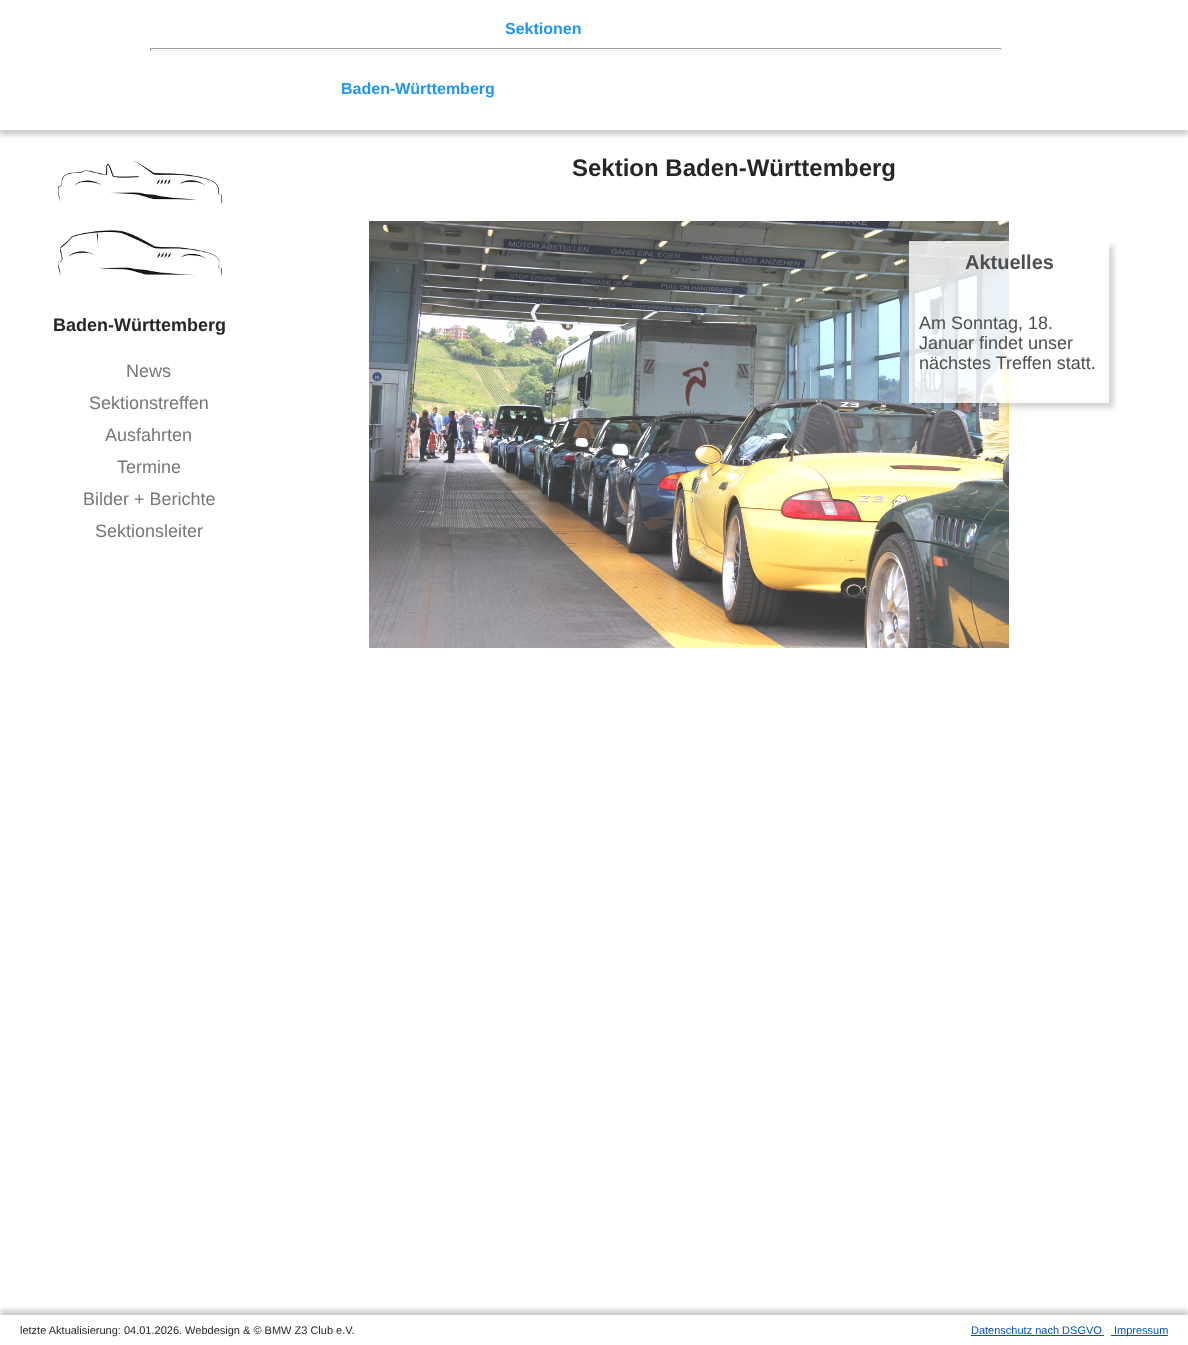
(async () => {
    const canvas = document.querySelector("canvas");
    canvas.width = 1188;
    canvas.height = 1345;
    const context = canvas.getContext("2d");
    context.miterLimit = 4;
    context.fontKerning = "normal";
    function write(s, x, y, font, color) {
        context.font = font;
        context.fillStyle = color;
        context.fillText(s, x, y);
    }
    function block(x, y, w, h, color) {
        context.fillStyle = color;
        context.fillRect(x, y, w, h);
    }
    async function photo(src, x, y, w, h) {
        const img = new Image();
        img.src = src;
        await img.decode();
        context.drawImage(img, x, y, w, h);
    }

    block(0, 0, 1188, 1345, "rgb(255, 255, 255)");
    context.save();
    context.beginPath();
    context.rect(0, 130, 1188, 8);
    context.clip();
    context.fillStyle = "rgba(0, 0, 0, 0.2)";
    context.filter = "blur(2.5px)";
    context.beginPath();
    context.rect(0, 5, 1188, 130);
    context.fill();
    context.filter = "none";
    context.restore();
    write("Sektionen", 505, 34, "bold 16px Liberation Sans", "rgb(31, 148, 255)");
    block(150, 48, 852, 1, "rgb(159, 159, 159)");
    block(1001, 48, 1, 3, "rgb(238, 238, 238)");
    block(150, 50, 852, 1, "rgb(238, 238, 238)");
    block(150, 48, 1, 3, "rgb(159, 159, 159)");
    write("Baden-Württemberg", 341, 94, "bold 16px Liberation Sans", "rgb(31, 148, 255)");
    write("Sektion Baden-Württemberg", 572, 176, "bold 24px Liberation Sans", "rgb(38, 38, 38)");
    await photo("media/1.png", 369, 221, 640, 427);
    context.save();
    context.beginPath();
    context.moveTo(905, 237);
    context.lineTo(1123, 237);
    context.lineTo(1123, 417);
    context.lineTo(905, 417);
    context.closePath();
    context.moveTo(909, 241);
    context.lineTo(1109, 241);
    context.lineTo(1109, 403);
    context.lineTo(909, 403);
    context.closePath();
    context.clip("evenodd");
    context.fillStyle = "rgba(0, 0, 0, 0.16)";
    context.filter = "blur(2.5px)";
    context.beginPath();
    context.rect(914, 246, 200, 162);
    context.fill();
    context.filter = "none";
    context.restore();
    block(909, 241, 100, 162, "rgba(255, 255, 255, 0.8)");
    write("Aktuelles", 965, 269, "bold 20px Liberation Sans", "rgb(79, 79, 79)");
    write("Am Sonntag, 18.", 919, 329, "18px Liberation Sans", "rgb(79, 79, 79)");
    write("Januar findet unser", 919, 349, "18px Liberation Sans", "rgb(79, 79, 79)");
    write("nächstes Treffen statt.", 919, 369, "18px Liberation Sans", "rgb(79, 79, 79)");
    await photo("media/2.png", 57, 161, 165, 116);
    write("Baden-Württemberg", 53, 331, "bold 18px Liberation Sans", "rgb(38, 38, 38)");
    write("News", 126, 377, "18px Liberation Sans", "rgb(119, 119, 119)");
    write("Sektionstreffen", 89, 409, "18px Liberation Sans", "rgb(119, 119, 119)");
    write("Ausfahrten", 105, 441, "18px Liberation Sans", "rgb(119, 119, 119)");
    write("Termine", 117, 473, "18px Liberation Sans", "rgb(119, 119, 119)");
    write("Bilder + Berichte", 83, 505, "18px Liberation Sans", "rgb(119, 119, 119)");
    write("Sektionsleiter", 95, 537, "18px Liberation Sans", "rgb(119, 119, 119)");
    context.save();
    context.beginPath();
    context.rect(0, 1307, 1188, 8);
    context.clip();
    context.fillStyle = "rgba(0, 0, 0, 0.2)";
    context.filter = "blur(2.5px)";
    context.beginPath();
    context.rect(0, 1310, 1188, 30);
    context.fill();
    context.filter = "none";
    context.restore();
    write("letzte Aktualisierung: 04.01.2026. Webdesign & © BMW Z3 Club e.V.", 20, 1334, "11px Liberation Sans", "rgb(38, 38, 38)");
    write("Datenschutz nach DSGVO", 971, 1334, "11px Liberation Sans", "rgb(6, 83, 182)");
    block(971, 1335, 133, 1, "rgb(6, 83, 182)");
    block(1111, 1335, 57, 1, "rgb(6, 83, 182)");
    write("Impressum", 1114, 1334, "11px Liberation Sans", "rgb(6, 83, 182)");
})();
